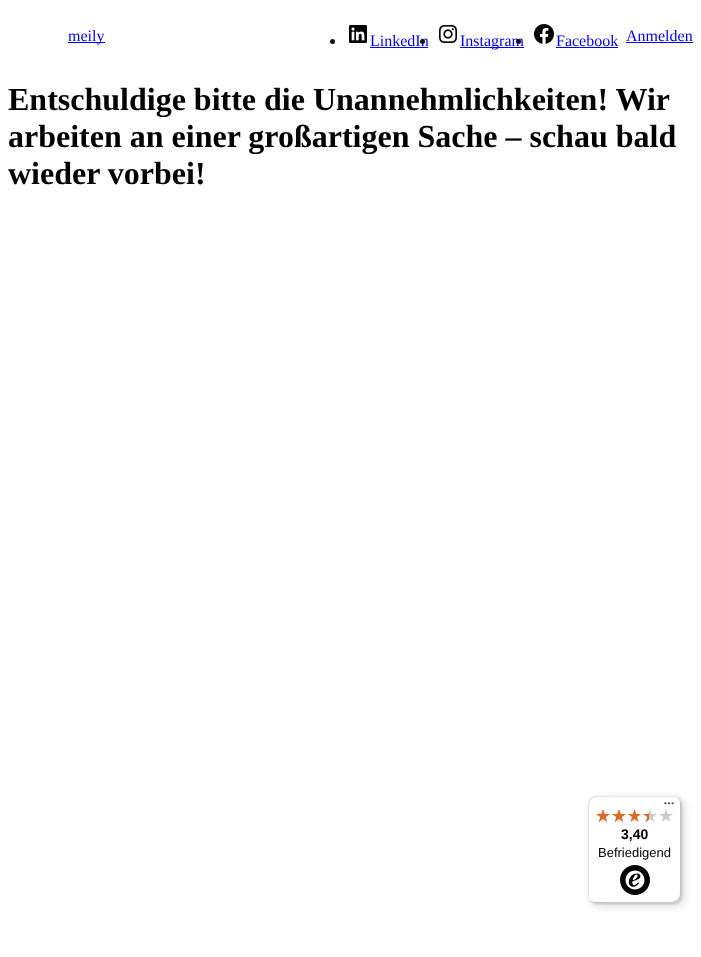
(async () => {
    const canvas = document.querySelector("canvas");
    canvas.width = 701;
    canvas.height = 957;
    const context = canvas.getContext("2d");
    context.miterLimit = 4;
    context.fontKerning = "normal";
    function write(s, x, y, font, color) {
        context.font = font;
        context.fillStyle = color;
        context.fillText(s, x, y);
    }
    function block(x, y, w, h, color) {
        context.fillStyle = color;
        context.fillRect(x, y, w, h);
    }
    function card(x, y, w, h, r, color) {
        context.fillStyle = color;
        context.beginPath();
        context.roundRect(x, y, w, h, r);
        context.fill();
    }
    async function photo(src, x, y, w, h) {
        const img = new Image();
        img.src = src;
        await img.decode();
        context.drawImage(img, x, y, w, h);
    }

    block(0, 0, 701, 957, "rgb(255, 255, 255)");
    block(68, 42, 37, 1, "rgb(0, 0, 238)");
    write("meily", 68, 41, "16px Liberation Serif", "rgb(0, 0, 238)");
    context.fillStyle = "rgb(17, 17, 17)";
    context.beginPath();
    context.arc(332.5, 41.5, 2.5, 0, Math.PI * 2);
    context.fill();
    await photo("media/1.png", 349, 25, 18, 18);
    write("LinkedIn", 370, 46, "16px Liberation Serif", "rgb(0, 0, 238)");
    block(370, 47, 58, 1, "rgb(0, 0, 238)");
    context.fillStyle = "rgb(17, 17, 17)";
    context.beginPath();
    context.arc(422.5, 41.5, 2.5, 0, Math.PI * 2);
    context.fill();
    await photo("media/2.png", 439, 25, 18, 18);
    block(460, 47, 64, 1, "rgb(0, 0, 238)");
    write("Instagram", 460, 46, "16px Liberation Serif", "rgb(0, 0, 238)");
    context.fillStyle = "rgb(17, 17, 17)";
    context.beginPath();
    context.arc(518.5, 41.5, 2.5, 0, Math.PI * 2);
    context.fill();
    await photo("media/3.png", 534, 24, 20, 20);
    write("Facebook", 556, 46, "16px Liberation Serif", "rgb(0, 0, 238)");
    block(556, 47, 62, 1, "rgb(0, 0, 238)");
    write("Anmelden", 626, 41, "16px Liberation Serif", "rgb(0, 0, 238)");
    block(626, 42, 67, 1, "rgb(0, 0, 238)");
    write("Entschuldige bitte die Unannehmlichkeiten! Wir", 8, 110, "bold 32px Liberation Serif", "rgb(0, 0, 0)");
    write("arbeiten an einer großartigen Sache – schau bald", 8, 147, "bold 32px Liberation Serif", "rgb(0, 0, 0)");
    write("wieder vorbei!", 8, 184, "bold 32px Liberation Serif", "rgb(0, 0, 0)");
    context.fillStyle = "rgba(0, 0, 0, 0.15)";
    context.filter = "blur(4px)";
    context.beginPath();
    context.roundRect(591, 799, 93, 107, 8);
    context.fill();
    context.filter = "none";
    context.filter = "blur(1px)";
    context.beginPath();
    context.roundRect(589, 797, 93, 107, 8);
    context.fill();
    context.filter = "none";
    card(588, 796, 93, 107, 8, "rgb(255, 255, 255)");
    context.fillStyle = "rgb(229, 229, 229)";
    context.beginPath();
    context.moveTo(597, 797);
    context.lineTo(674, 797);
    context.bezierCurveTo(676, 797, 678, 798, 680, 800);
    context.bezierCurveTo(678, 798, 676, 796, 673, 796);
    context.lineTo(596, 796);
    context.bezierCurveTo(592, 796, 588, 800, 588, 804);
    context.lineTo(588, 895);
    context.bezierCurveTo(588, 898, 590, 900, 592, 902);
    context.bezierCurveTo(590, 900, 589, 898, 589, 896);
    context.lineTo(589, 805);
    context.bezierCurveTo(589, 801, 593, 797, 597, 797);
    context.closePath();
    context.fill();
    context.fillStyle = "rgb(204, 204, 204)";
    context.beginPath();
    context.moveTo(589, 899);
    context.bezierCurveTo(591, 901, 593, 903, 596, 903);
    context.lineTo(673, 903);
    context.bezierCurveTo(677, 903, 681, 899, 681, 895);
    context.lineTo(681, 804);
    context.bezierCurveTo(681, 801, 679, 799, 677, 797);
    context.bezierCurveTo(679, 799, 680, 801, 680, 803);
    context.lineTo(680, 894);
    context.bezierCurveTo(680, 898, 676, 902, 672, 902);
    context.lineTo(595, 902);
    context.bezierCurveTo(593, 902, 591, 901, 589, 899);
    context.closePath();
    context.fill();
    context.fillStyle = "rgba(50, 50, 50, 0.2)";
    context.beginPath();
    context.moveTo(590, 900);
    context.bezierCurveTo(591, 902, 594, 903, 596, 903);
    context.lineTo(673, 903);
    context.bezierCurveTo(677, 903, 681, 899, 681, 895);
    context.lineTo(681, 804);
    context.bezierCurveTo(681, 802, 680, 799, 678, 798);
    context.bezierCurveTo(679, 799, 680, 801, 680, 803);
    context.lineTo(680, 894);
    context.bezierCurveTo(680, 899, 677, 902, 672, 902);
    context.lineTo(595, 902);
    context.bezierCurveTo(593, 902, 591, 901, 590, 900);
    context.closePath();
    context.fill();
    context.fillStyle = "rgba(255, 255, 255, 0.3)";
    context.beginPath();
    context.moveTo(680, 804);
    context.bezierCurveTo(680, 799, 677, 796, 672, 796);
    context.lineTo(673, 796);
    context.bezierCurveTo(677, 796, 681, 800, 681, 804);
    context.lineTo(681, 895);
    context.bezierCurveTo(681, 899, 677, 903, 673, 903);
    context.lineTo(596, 903);
    context.bezierCurveTo(592, 903, 588, 899, 588, 895);
    context.lineTo(588, 894);
    context.bezierCurveTo(588, 899, 591, 902, 596, 902);
    context.lineTo(672, 902);
    context.bezierCurveTo(677, 902, 680, 899, 680, 894);
    context.closePath();
    context.fill();
    await photo("media/4.png", 664, 802, 10, 3);
    await photo("media/5.png", 596, 809, 14, 13);
    await photo("media/5.png", 612, 809, 14, 13);
    await photo("media/6.png", 628, 809, 13, 13);
    await photo("media/5.png", 643, 809, 14, 13);
    await photo("media/5.png", 659, 809, 14, 13);
    await photo("media/7.png", 596, 809, 14, 13);
    await photo("media/7.png", 612, 809, 14, 13);
    await photo("media/8.png", 628, 809, 13, 13);
    await photo("media/9.png", 643, 812, 6, 10);
    write("3,40", 621, 839, "bold 14px Liberation Sans", "rgb(0, 0, 0)");
    write("Befriedigend", 598, 857, "13px Liberation Sans", "rgb(0, 0, 0)");
    await photo("media/10.png", 620, 865, 30, 30);
})();
